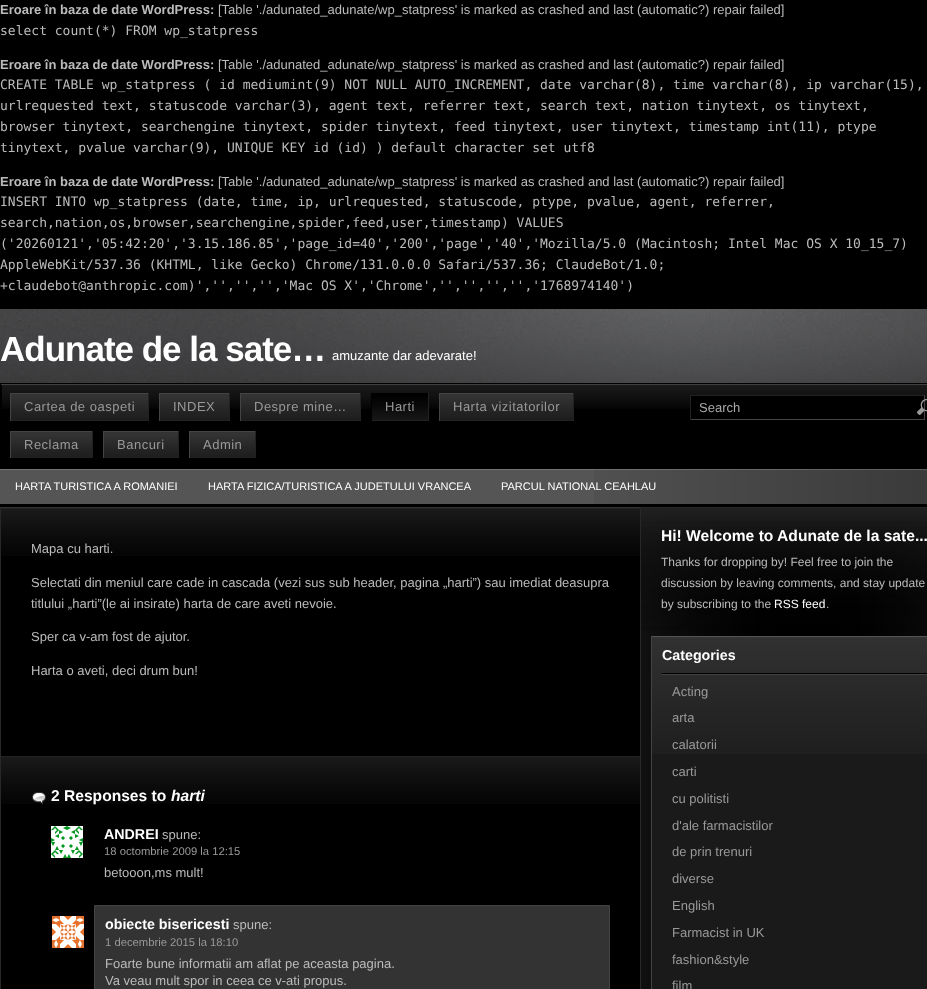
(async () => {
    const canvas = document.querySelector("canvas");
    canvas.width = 927;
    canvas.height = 989;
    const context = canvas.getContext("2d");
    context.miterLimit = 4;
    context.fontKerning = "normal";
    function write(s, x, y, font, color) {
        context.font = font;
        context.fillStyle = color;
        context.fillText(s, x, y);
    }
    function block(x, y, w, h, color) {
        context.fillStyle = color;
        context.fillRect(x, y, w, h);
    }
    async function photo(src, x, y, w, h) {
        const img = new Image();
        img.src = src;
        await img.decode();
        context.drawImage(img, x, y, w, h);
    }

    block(0, 0, 927, 989, "rgb(0, 0, 0)");
    write("Eroare în baza de date WordPress:", 0, 14, "bold 13px Liberation Sans", "rgb(187, 187, 187)");
    write("[Table './adunated_adunate/wp_statpress' is marked as crashed and last (automatic?) repair failed]", 218, 14, "13px Liberation Sans", "rgb(187, 187, 187)");
    write("select count(*) FROM wp_statpress", 0, 35, "13px DejaVu Sans Mono", "rgb(187, 187, 187)");
    write("Eroare în baza de date WordPress:", 0, 69, "bold 13px Liberation Sans", "rgb(187, 187, 187)");
    write("[Table './adunated_adunate/wp_statpress' is marked as crashed and last (automatic?) repair failed]", 218, 69, "13px Liberation Sans", "rgb(187, 187, 187)");
    write("CREATE TABLE wp_statpress ( id mediumint(9) NOT NULL AUTO_INCREMENT, date varchar(8), time varchar(8), ip varchar(15),", 0, 89, "13px DejaVu Sans Mono", "rgb(187, 187, 187)");
    write("urlrequested text, statuscode varchar(3), agent text, referrer text, search text, nation tinytext, os tinytext,", 0, 110, "13px DejaVu Sans Mono", "rgb(187, 187, 187)");
    write("browser tinytext, searchengine tinytext, spider tinytext, feed tinytext, user tinytext, timestamp int(11), ptype", 0, 131, "13px DejaVu Sans Mono", "rgb(187, 187, 187)");
    write("tinytext, pvalue varchar(9), UNIQUE KEY id (id) ) default character set utf8", 0, 152, "13px DejaVu Sans Mono", "rgb(187, 187, 187)");
    write("Eroare în baza de date WordPress:", 0, 186, "bold 13px Liberation Sans", "rgb(187, 187, 187)");
    write("[Table './adunated_adunate/wp_statpress' is marked as crashed and last (automatic?) repair failed]", 218, 186, "13px Liberation Sans", "rgb(187, 187, 187)");
    write("INSERT INTO wp_statpress (date, time, ip, urlrequested, statuscode, ptype, pvalue, agent, referrer,", 0, 206, "13px DejaVu Sans Mono", "rgb(187, 187, 187)");
    write("search,nation,os,browser,searchengine,spider,feed,user,timestamp) VALUES", 0, 227, "13px DejaVu Sans Mono", "rgb(187, 187, 187)");
    write("('20260121','05:42:20','3.15.186.85','page_id=40','200','page','40','Mozilla/5.0 (Macintosh; Intel Mac OS X 10_15_7)", 0, 248, "13px DejaVu Sans Mono", "rgb(187, 187, 187)");
    write("AppleWebKit/537.36 (KHTML, like Gecko) Chrome/131.0.0.0 Safari/537.36; ClaudeBot/1.0;", 0, 269, "13px DejaVu Sans Mono", "rgb(187, 187, 187)");
    write("+claudebot@anthropic.com)','','','','Mac OS X','Chrome','','','','','1768974140')", 0, 290, "13px DejaVu Sans Mono", "rgb(187, 187, 187)");
    await photo("media/1.png", 0, 309, 927, 74);
    context.letterSpacing = "-1px";
    write("Adunate de la sate…", 0, 361, "bold 35px Liberation Sans", "rgb(255, 255, 255)");
    context.letterSpacing = "0px";
    write("amuzante dar adevarate!", 332, 360, "13px Liberation Sans", "rgb(255, 255, 255)");
    await photo("media/2.png", 1, 383, 926, 2);
    await photo("media/3.png", 2, 385, 925, 24);
    await photo("media/4.png", 11, 394, 137, 26);
    block(10, 393, 139, 1, "rgb(68, 68, 68)");
    block(148, 393, 1, 28, "rgb(34, 34, 34)");
    block(10, 420, 139, 1, "rgb(34, 34, 34)");
    block(10, 393, 1, 28, "rgb(68, 68, 68)");
    context.letterSpacing = "0.5px";
    write("Cartea de oaspeti", 24, 411, "13px Liberation Sans", "rgb(153, 153, 153)");
    await photo("media/5.png", 160, 394, 69, 26);
    block(159, 393, 71, 1, "rgb(68, 68, 68)");
    block(229, 393, 1, 28, "rgb(34, 34, 34)");
    block(159, 420, 71, 1, "rgb(34, 34, 34)");
    block(159, 393, 1, 28, "rgb(68, 68, 68)");
    write("INDEX", 173, 411, "13px Liberation Sans", "rgb(153, 153, 153)");
    await photo("media/6.png", 241, 394, 119, 26);
    block(240, 393, 121, 1, "rgb(68, 68, 68)");
    block(360, 393, 1, 28, "rgb(34, 34, 34)");
    block(240, 420, 121, 1, "rgb(34, 34, 34)");
    block(240, 393, 1, 28, "rgb(68, 68, 68)");
    write("Despre mine…", 254, 411, "13px Liberation Sans", "rgb(153, 153, 153)");
    await photo("media/7.png", 372, 394, 56, 26);
    block(371, 393, 58, 1, "rgb(0, 0, 0)");
    block(428, 393, 1, 28, "rgb(34, 34, 34)");
    block(371, 420, 58, 1, "rgb(34, 34, 34)");
    block(371, 393, 1, 28, "rgb(0, 0, 0)");
    write("Harti", 385, 411, "13px Liberation Sans", "rgb(153, 153, 153)");
    await photo("media/8.png", 440, 394, 133, 26);
    block(439, 393, 135, 1, "rgb(68, 68, 68)");
    block(573, 393, 1, 28, "rgb(34, 34, 34)");
    block(439, 420, 135, 1, "rgb(34, 34, 34)");
    block(439, 393, 1, 28, "rgb(68, 68, 68)");
    write("Harta vizitatorilor", 453, 411, "13px Liberation Sans", "rgb(153, 153, 153)");
    await photo("media/9.png", 11, 432, 81, 25);
    block(10, 431, 83, 1, "rgb(68, 68, 68)");
    block(92, 431, 1, 27, "rgb(34, 34, 34)");
    block(10, 457, 83, 1, "rgb(34, 34, 34)");
    block(10, 431, 1, 27, "rgb(68, 68, 68)");
    write("Reclama", 24, 449, "13px Liberation Sans", "rgb(153, 153, 153)");
    await photo("media/10.png", 104, 432, 74, 25);
    block(103, 431, 76, 1, "rgb(68, 68, 68)");
    block(178, 431, 1, 27, "rgb(34, 34, 34)");
    block(103, 457, 76, 1, "rgb(34, 34, 34)");
    block(103, 431, 1, 27, "rgb(68, 68, 68)");
    write("Bancuri", 117, 449, "13px Liberation Sans", "rgb(153, 153, 153)");
    await photo("media/11.png", 190, 432, 65, 25);
    block(189, 431, 67, 1, "rgb(68, 68, 68)");
    block(255, 431, 1, 27, "rgb(34, 34, 34)");
    block(189, 457, 67, 1, "rgb(34, 34, 34)");
    block(189, 431, 1, 27, "rgb(68, 68, 68)");
    write("Admin", 203, 449, "13px Liberation Sans", "rgb(153, 153, 153)");
    block(691, 396, 233, 13, "rgb(0, 0, 0)");
    block(690, 395, 235, 1, "rgb(34, 34, 34)");
    block(924, 395, 1, 25, "rgb(68, 68, 68)");
    block(690, 419, 235, 1, "rgb(68, 68, 68)");
    block(690, 395, 1, 25, "rgb(34, 34, 34)");
    context.letterSpacing = "0px";
    write("Search", 699, 412, "13px Liberation Sans", "rgb(170, 170, 170)");
    await photo("media/12.png", 917, 399, 10, 16);
    block(0, 469, 927, 35, "rgb(85, 85, 85)");
    await photo("media/13.png", 594, 469, 333, 35);
    block(0, 469, 927, 1, "rgba(255, 255, 255, 0.19)");
    write("HARTA TURISTICA A ROMANIEI", 15, 490, "11px Liberation Sans", "rgb(255, 255, 255)");
    write("HARTA FIZICA/TURISTICA A JUDETULUI VRANCEA", 208, 490, "11px Liberation Sans", "rgb(255, 255, 255)");
    write("PARCUL NATIONAL CEAHLAU", 501, 490, "11px Liberation Sans", "rgb(255, 255, 255)");
    await photo("media/14.png", 641, 508, 286, 481);
    block(0, 507, 1, 482, "rgb(40, 40, 40)");
    block(1, 507, 640, 1, "rgb(51, 51, 51)");
    await photo("media/15.png", 1, 509, 639, 47);
    block(1, 508, 639, 1, "rgb(34, 34, 34)");
    write("Mapa cu harti.", 31, 553, "13px Liberation Sans", "rgb(187, 187, 187)");
    write("Selectati din meniul care cade in cascada (vezi sus sub header, pagina „harti”) sau imediat deasupra", 31, 587, "13px Liberation Sans", "rgb(187, 187, 187)");
    write("titlului „harti”(le ai insirate) harta de care aveti nevoie.", 31, 608, "13px Liberation Sans", "rgb(187, 187, 187)");
    write("Sper ca v-am fost de ajutor.", 31, 641, "13px Liberation Sans", "rgb(187, 187, 187)");
    write("Harta o aveti, deci drum bun!", 31, 675, "13px Liberation Sans", "rgb(187, 187, 187)");
    await photo("media/15.png", 1, 757, 639, 47);
    block(1, 756, 639, 1, "rgb(34, 34, 34)");
    await photo("media/16.png", 32, 792, 14, 13);
    write("2 Responses to", 51, 801, "bold 15.6px Liberation Sans", "rgb(255, 255, 255)");
    write("harti", 171, 801, "italic bold 15.6px Liberation Sans", "rgb(255, 255, 255)");
    await photo("media/17.png", 51, 826, 32, 32);
    write("ANDREI", 104, 839, "bold 14.25px Liberation Sans", "rgb(255, 255, 255)");
    write("spune:", 162, 839, "13px Liberation Sans", "rgb(187, 187, 187)");
    write("18 octombrie 2009 la 12:15", 104, 855, "11.25px Liberation Sans", "rgb(153, 153, 153)");
    write("betooon,ms mult!", 104, 877, "13px Liberation Sans", "rgb(187, 187, 187)");
    context.fillStyle = "rgb(51, 51, 51)";
    context.beginPath();
    context.rect(94.5, 905.5, 515, 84);
    context.fill();
    context.strokeStyle = "rgb(68, 68, 68)";
    context.stroke();
    await photo("media/18.png", 52, 916, 32, 32);
    write("obiecte bisericesti", 105, 929, "bold 14.25px Liberation Sans", "rgb(255, 255, 255)");
    write("spune:", 233, 929, "13px Liberation Sans", "rgb(187, 187, 187)");
    write("1 decembrie 2015 la 18:10", 105, 946, "11.25px Liberation Sans", "rgb(153, 153, 153)");
    write("Foarte bune informatii am aflat pe aceasta pagina.", 105, 968, "13px Liberation Sans", "rgb(187, 187, 187)");
    write("Va veau mult spor in ceea ce v-ati propus.", 105, 985, "13px Liberation Sans", "rgb(187, 187, 187)");
    await photo("media/19.png", 641, 507, 286, 124);
    block(640, 507, 1, 482, "rgb(40, 40, 40)");
    write("Hi! Welcome to Adunate de la sate...", 661, 541, "bold 15.6px Liberation Sans", "rgb(255, 255, 255)");
    write("Thanks for dropping by! Feel free to join the", 661, 566, "12px Liberation Sans", "rgb(187, 187, 187)");
    write("discussion by leaving comments, and stay update", 661, 587, "12px Liberation Sans", "rgb(187, 187, 187)");
    write("by subscribing to the", 661, 608, "12px Liberation Sans", "rgb(187, 187, 187)");
    write("RSS feed", 774, 608, "12px Liberation Sans", "rgb(255, 255, 255)");
    write(".", 826, 608, "12px Liberation Sans", "rgb(187, 187, 187)");
    block(652, 754, 275, 235, "rgb(26, 26, 26)");
    await photo("media/20.png", 652, 637, 275, 117);
    block(651, 636, 276, 1, "rgb(85, 85, 85)");
    block(651, 636, 1, 353, "rgb(68, 68, 68)");
    await photo("media/21.png", 662, 673, 265, 2);
    write("Categories", 662, 660, "bold 14.25px Liberation Sans", "rgb(255, 255, 255)");
    write("Acting", 672, 696, "13px Liberation Sans", "rgb(153, 153, 153)");
    write("arta", 672, 722, "13px Liberation Sans", "rgb(153, 153, 153)");
    write("calatorii", 672, 749, "13px Liberation Sans", "rgb(153, 153, 153)");
    write("carti", 672, 776, "13px Liberation Sans", "rgb(153, 153, 153)");
    write("cu politisti", 672, 803, "13px Liberation Sans", "rgb(153, 153, 153)");
    write("d'ale farmacistilor", 672, 830, "13px Liberation Sans", "rgb(153, 153, 153)");
    write("de prin trenuri", 672, 856, "13px Liberation Sans", "rgb(153, 153, 153)");
    write("diverse", 672, 883, "13px Liberation Sans", "rgb(153, 153, 153)");
    write("English", 672, 910, "13px Liberation Sans", "rgb(153, 153, 153)");
    write("Farmacist in UK", 672, 937, "13px Liberation Sans", "rgb(153, 153, 153)");
    write("fashion&style", 672, 964, "13px Liberation Sans", "rgb(153, 153, 153)");
    write("film", 672, 990, "13px Liberation Sans", "rgb(153, 153, 153)");
})();
